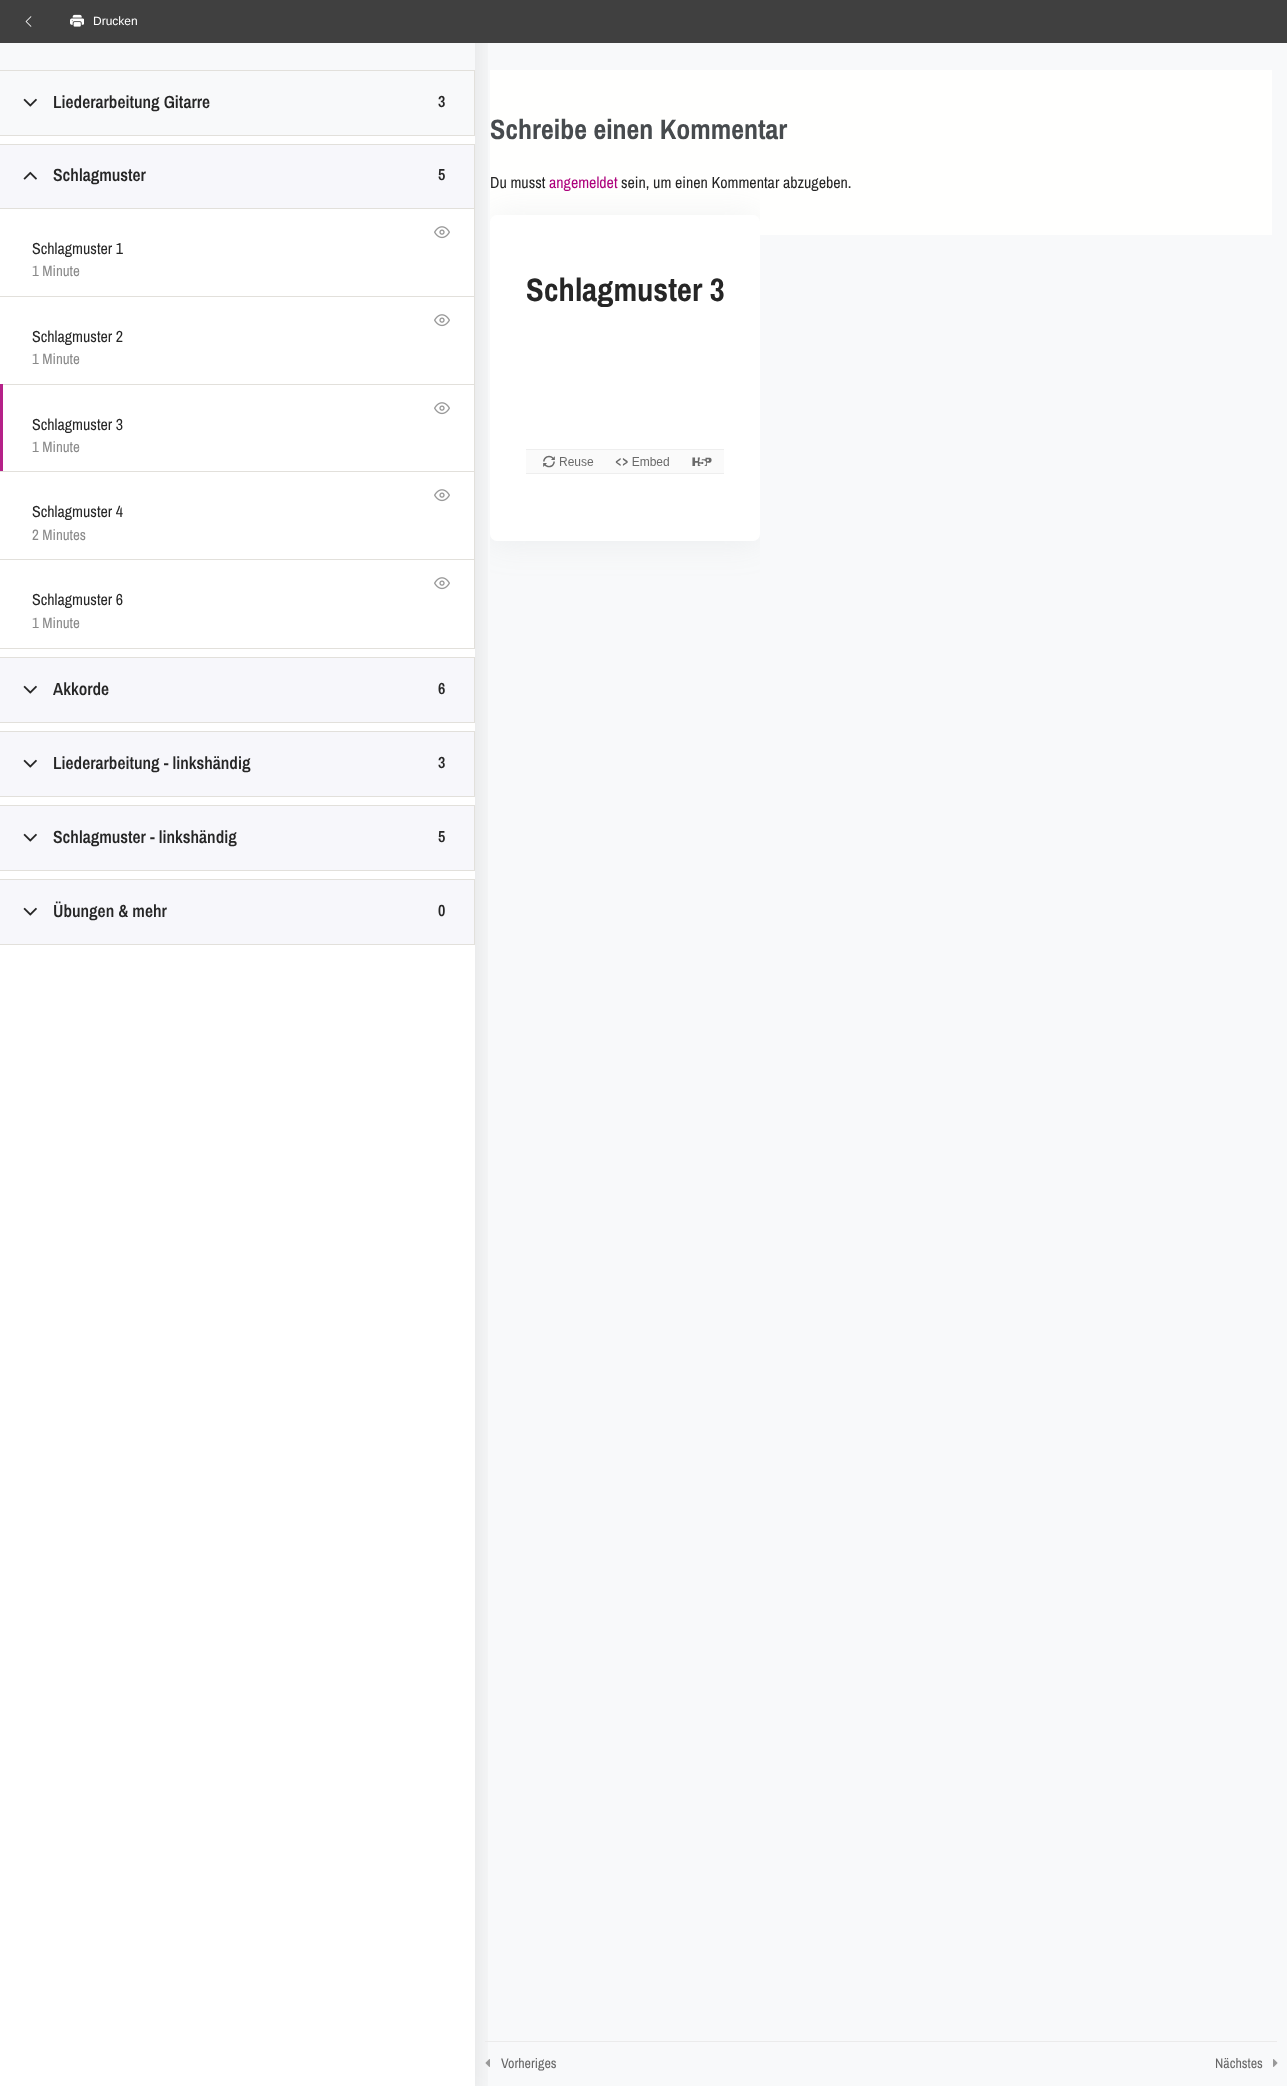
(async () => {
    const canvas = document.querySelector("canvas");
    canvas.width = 1287;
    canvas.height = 2086;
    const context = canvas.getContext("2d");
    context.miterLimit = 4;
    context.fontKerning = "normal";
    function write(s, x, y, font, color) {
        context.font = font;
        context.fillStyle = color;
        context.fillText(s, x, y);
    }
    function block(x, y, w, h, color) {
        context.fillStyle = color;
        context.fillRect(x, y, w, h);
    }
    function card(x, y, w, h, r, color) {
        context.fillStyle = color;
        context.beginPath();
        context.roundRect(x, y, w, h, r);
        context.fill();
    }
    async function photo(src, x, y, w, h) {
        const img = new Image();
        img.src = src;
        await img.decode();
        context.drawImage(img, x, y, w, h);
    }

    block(0, 0, 1287, 2086, "rgb(248, 249, 250)");
    context.save();
    context.beginPath();
    context.rect(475, 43, 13, 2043);
    context.clip();
    context.fillStyle = "rgba(0, 0, 0, 0.1)";
    context.filter = "blur(15px)";
    context.beginPath();
    context.rect(0, 15, 475, 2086);
    context.fill();
    context.filter = "none";
    context.restore();
    block(0, 0, 1287, 43, "rgb(64, 64, 64)");
    await photo("media/1.png", 25, 16, 7, 11);
    await photo("media/2.png", 70, 14, 14, 13);
    write("Drucken", 93, 25, "12px Liberation Sans", "rgb(255, 255, 255)");
    block(0, 136, 475, 1950, "rgb(255, 255, 255)");
    block(0, 70, 475, 1, "rgb(226, 224, 219)");
    block(474, 70, 1, 66, "rgb(226, 224, 219)");
    block(0, 135, 475, 1, "rgb(226, 224, 219)");
    await photo("media/3.png", 23, 98, 14, 9);
    write("Liederarbeitung Gitarre", 53, 108, "600 17.6px Archivo Narrow", "rgb(38, 38, 38)");
    write("3", 438, 107, "600 16px Archivo Narrow", "rgb(38, 38, 38)");
    block(0, 144, 475, 1, "rgb(226, 224, 219)");
    block(474, 144, 1, 505, "rgb(226, 224, 219)");
    block(0, 648, 475, 1, "rgb(226, 224, 219)");
    block(0, 145, 474, 63, "rgb(247, 247, 251)");
    await photo("media/4.png", 23, 171, 14, 9);
    write("Schlagmuster", 53, 181, "600 17.6px Archivo Narrow", "rgb(38, 38, 38)");
    write("5", 438, 180, "600 16px Archivo Narrow", "rgb(38, 38, 38)");
    block(0, 208, 474, 1, "rgb(226, 224, 219)");
    await photo("media/5.png", 434, 226, 16, 13);
    write("Schlagmuster 1", 32, 254, "16px Archivo Narrow", "rgb(38, 38, 38)");
    write("1 Minute", 32, 276, "15px Archivo Narrow", "rgb(138, 138, 138)");
    block(0, 296, 474, 1, "rgb(226, 224, 219)");
    await photo("media/5.png", 434, 314, 16, 13);
    write("Schlagmuster 2", 32, 342, "16px Archivo Narrow", "rgb(38, 38, 38)");
    write("1 Minute", 32, 364, "15px Archivo Narrow", "rgb(138, 138, 138)");
    block(0, 384, 474, 1, "rgb(226, 224, 219)");
    block(0, 384, 3, 88, "rgb(181, 33, 136)");
    await photo("media/5.png", 434, 402, 16, 13);
    write("Schlagmuster 3", 32, 430, "16px Archivo Narrow", "rgb(38, 38, 38)");
    write("1 Minute", 32, 452, "15px Archivo Narrow", "rgb(138, 138, 138)");
    block(0, 471, 474, 1, "rgb(226, 224, 219)");
    await photo("media/5.png", 434, 489, 16, 13);
    write("Schlagmuster 4", 32, 517, "16px Archivo Narrow", "rgb(38, 38, 38)");
    write("2 Minutes", 32, 540, "15px Archivo Narrow", "rgb(138, 138, 138)");
    block(0, 559, 474, 1, "rgb(226, 224, 219)");
    await photo("media/5.png", 434, 577, 16, 13);
    write("Schlagmuster 6", 32, 605, "16px Archivo Narrow", "rgb(38, 38, 38)");
    write("1 Minute", 32, 628, "15px Archivo Narrow", "rgb(138, 138, 138)");
    block(0, 657, 475, 1, "rgb(226, 224, 219)");
    block(474, 657, 1, 66, "rgb(226, 224, 219)");
    block(0, 722, 475, 1, "rgb(226, 224, 219)");
    block(0, 658, 474, 64, "rgb(247, 247, 251)");
    await photo("media/3.png", 23, 685, 14, 9);
    write("Akkorde", 53, 695, "600 17.6px Archivo Narrow", "rgb(38, 38, 38)");
    write("6", 438, 694, "600 16px Archivo Narrow", "rgb(38, 38, 38)");
    block(0, 731, 475, 1, "rgb(226, 224, 219)");
    block(474, 731, 1, 66, "rgb(226, 224, 219)");
    block(0, 796, 475, 1, "rgb(226, 224, 219)");
    block(0, 732, 474, 64, "rgb(247, 247, 251)");
    await photo("media/3.png", 23, 759, 14, 9);
    write("Liederarbeitung - linkshändig", 53, 769, "600 17.6px Archivo Narrow", "rgb(38, 38, 38)");
    write("3", 438, 768, "600 16px Archivo Narrow", "rgb(38, 38, 38)");
    block(0, 805, 475, 1, "rgb(226, 224, 219)");
    block(474, 805, 1, 66, "rgb(226, 224, 219)");
    block(0, 870, 475, 1, "rgb(226, 224, 219)");
    block(0, 806, 474, 64, "rgb(247, 247, 251)");
    await photo("media/3.png", 23, 833, 14, 9);
    write("Schlagmuster - linkshändig", 53, 843, "600 17.6px Archivo Narrow", "rgb(38, 38, 38)");
    write("5", 438, 842, "600 16px Archivo Narrow", "rgb(38, 38, 38)");
    block(0, 879, 475, 1, "rgb(226, 224, 219)");
    block(474, 879, 1, 66, "rgb(226, 224, 219)");
    block(0, 944, 475, 1, "rgb(226, 224, 219)");
    block(0, 880, 474, 64, "rgb(247, 247, 251)");
    await photo("media/3.png", 23, 907, 14, 9);
    write("Übungen & mehr", 53, 917, "600 17.6px Archivo Narrow", "rgb(38, 38, 38)");
    write("0", 438, 916, "600 16px Archivo Narrow", "rgb(38, 38, 38)");
    block(490, 70, 782, 165, "rgb(255, 255, 254)");
    write("Schreibe einen Kommentar", 490, 139, "bold 28px Archivo Narrow", "rgb(71, 75, 78)");
    write("Du musst", 490, 188, "16px Archivo Narrow", "rgb(38, 38, 38)");
    write("angemeldet", 549, 188, "16px Archivo Narrow", "rgb(173, 0, 124)");
    write("sein, um einen Kommentar abzugeben.", 621, 188, "16px Archivo Narrow", "rgb(38, 38, 38)");
    context.save();
    context.beginPath();
    context.rect(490, 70, 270, 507);
    context.clip();
    context.fillStyle = "rgba(154, 161, 171, 0.15)";
    context.filter = "blur(17.5px)";
    context.beginPath();
    context.roundRect(490, 215, 270, 326, 7);
    context.fill();
    context.filter = "none";
    context.restore();
    card(490, 215, 270, 326, 7, "rgb(255, 255, 255)");
    write("Schlagmuster 3", 526, 301, "bold 32.5px Archivo Narrow", "rgb(38, 38, 38)");
    await photo("media/6.png", 526, 449, 198, 25);
    block(485, 2041, 792, 1, "rgb(235, 235, 235)");
    await photo("media/7.png", 485, 2059, 5, 8);
    write("Vorheriges", 501, 2068, "14px Archivo Narrow", "rgb(102, 102, 102)");
    write("Nächstes", 1215, 2068, "14px Archivo Narrow", "rgb(102, 102, 102)");
    await photo("media/8.png", 1273, 2059, 5, 8);
})();
